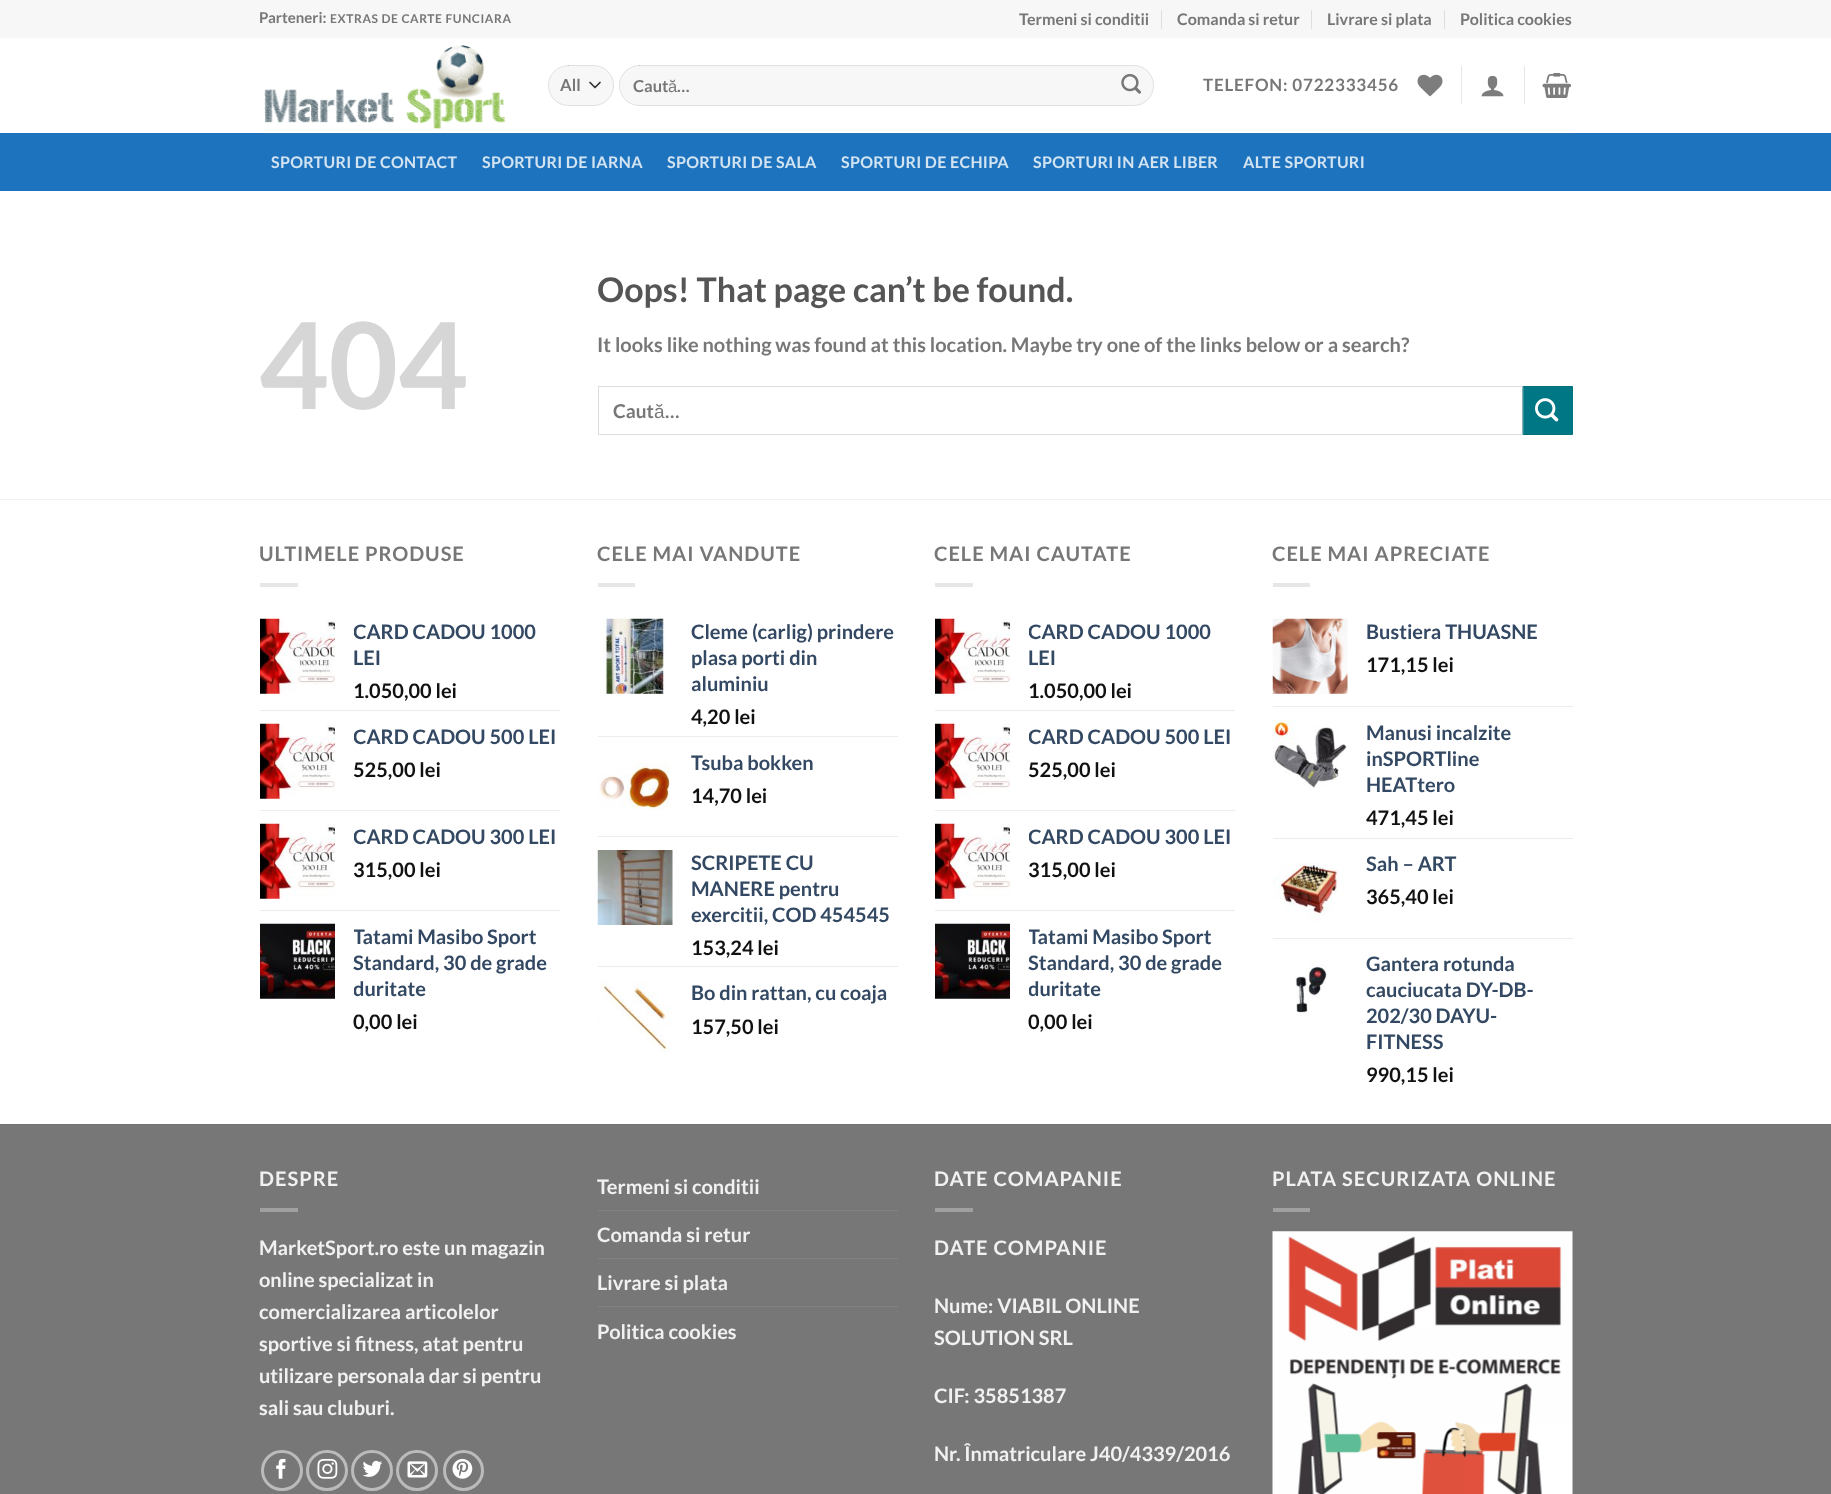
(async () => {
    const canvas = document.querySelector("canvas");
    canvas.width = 1831;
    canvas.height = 1494;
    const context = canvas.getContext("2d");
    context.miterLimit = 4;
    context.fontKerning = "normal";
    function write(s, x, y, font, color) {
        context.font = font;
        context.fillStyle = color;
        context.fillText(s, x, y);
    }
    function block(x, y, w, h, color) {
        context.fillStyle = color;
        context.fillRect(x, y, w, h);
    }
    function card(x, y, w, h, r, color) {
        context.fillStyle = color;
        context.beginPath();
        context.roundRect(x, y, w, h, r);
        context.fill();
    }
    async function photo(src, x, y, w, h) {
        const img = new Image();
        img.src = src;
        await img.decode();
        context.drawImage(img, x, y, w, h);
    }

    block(0, 0, 1831, 1494, "rgb(255, 255, 255)");
    block(0, 0, 1831, 38, "rgb(247, 247, 247)");
    write("Parteneri:", 259, 23, "bold 15px Lato", "rgb(119, 119, 119)");
    context.letterSpacing = "0.6px";
    write("EXTRAS DE CARTE FUNCIARA", 330, 23, "bold 12px Lato", "rgb(119, 119, 119)");
    context.letterSpacing = "0px";
    write("Termeni si conditii", 1019, 25, "bold 16px Lato", "rgb(119, 119, 119)");
    block(1161, 10, 1, 19, "rgb(222, 222, 222)");
    write("Comanda si retur", 1177, 25, "bold 16px Lato", "rgb(119, 119, 119)");
    block(1311, 10, 1, 19, "rgb(222, 222, 222)");
    write("Livrare si plata", 1327, 25, "bold 16px Lato", "rgb(119, 119, 119)");
    block(1444, 10, 1, 19, "rgb(222, 222, 222)");
    write("Politica cookies", 1460, 25, "bold 16px Lato", "rgb(119, 119, 119)");
    await photo("media/1.png", 264, 45, 241, 84);
    card(548, 65, 66, 41, 20.5, "rgb(247, 247, 247)");
    context.beginPath();
    context.moveTo(590, 82.5);
    context.lineTo(595, 87.5);
    context.lineTo(600, 82.5);
    context.strokeStyle = "rgb(51, 51, 51)";
    context.lineWidth = 1.7;
    context.lineCap = "round";
    context.lineJoin = "round";
    context.stroke();
    context.beginPath();
    context.roundRect(548.5, 65.5, 65, 40, 20);
    context.strokeStyle = "rgba(0, 0, 0, 0.09)";
    context.lineWidth = 1;
    context.lineJoin = "miter";
    context.stroke();
    write("All", 560, 91, "bold 16.5px Lato", "rgb(119, 119, 119)");
    card(619, 65, 535, 41, 20.5, "rgb(247, 247, 247)");
    context.beginPath();
    context.roundRect(619.5, 65.5, 534, 40, 20);
    context.stroke();
    write("Caut", 633, 92, "bold 16.5px Lato", "rgb(119, 119, 119)");
    write("ă", 668, 92, "16.5px Liberation Sans", "rgb(119, 119, 119)");
    write("…", 677, 92, "bold 16.5px Lato", "rgb(119, 119, 119)");
    await photo("media/2.png", 1121, 74, 20, 20);
    context.letterSpacing = "0.8px";
    write("TELEFON: 0722333456", 1203, 91, "bold 17px Lato", "rgb(119, 119, 119)");
    await photo("media/3.png", 1417, 74, 26, 23);
    block(1461, 66, 1, 38, "rgb(230, 230, 230)");
    await photo("media/4.png", 1481, 75, 23, 22);
    block(1524, 66, 1, 38, "rgb(230, 230, 230)");
    await photo("media/5.png", 1542, 73, 29, 25);
    block(0, 133, 1831, 58, "rgb(30, 115, 190)");
    block(260, 133, 1313, 1, "rgb(39, 115, 183)");
    context.letterSpacing = "0.3px";
    write("SPORTURI DE CONTACT", 271, 168, "bold 16px Lato", "rgb(210, 227, 242)");
    write("SPORTURI DE IARNA", 482, 168, "bold 16px Lato", "rgb(210, 227, 242)");
    write("SPORTURI DE SALA", 667, 168, "bold 16px Lato", "rgb(210, 227, 242)");
    write("SPORTURI DE ECHIPA", 841, 168, "bold 16px Lato", "rgb(210, 227, 242)");
    write("SPORTURI IN AER LIBER", 1033, 168, "bold 16px Lato", "rgb(210, 227, 242)");
    write("ALTE SPORTURI", 1243, 168, "bold 16px Lato", "rgb(210, 227, 242)");
    context.letterSpacing = "0px";
    write("404", 259, 409, "bold 120px Lato", "rgb(214, 214, 214)");
    write("Oops! That page can’t be found.", 597, 302, "bold 34px Lato", "rgb(85, 85, 85)");
    write("It looks like nothing was found at this location. Maybe try one of the links below or a search?", 597, 352, "bold 20px Lato", "rgb(119, 119, 119)");
    context.strokeStyle = "rgb(221, 221, 221)";
    context.strokeRect(598.5, 386.5, 924, 48);
    write("Caut", 613, 418, "bold 19px Lato", "rgb(119, 119, 119)");
    write("ă", 654, 418, "19px Liberation Sans", "rgb(119, 119, 119)");
    write("…", 665, 418, "bold 19px Lato", "rgb(119, 119, 119)");
    context.fillStyle = "rgb(0, 119, 132)";
    context.beginPath();
    context.rect(1523.5, 386.5, 49, 48);
    context.fill();
    context.strokeStyle = "rgb(0, 113, 125)";
    context.stroke();
    await photo("media/6.png", 1535, 398, 24, 24);
    block(0, 499, 1831, 1, "rgb(242, 242, 242)");
    context.letterSpacing = "1px";
    write("ULTIMELE PRODUSE", 259, 561, "bold 20px Lato", "rgb(119, 119, 119)");
    block(260, 583, 38, 4, "rgb(230, 230, 230)");
    await photo("media/7.png", 260, 618, 75, 76);
    context.save();
    context.beginPath();
    context.rect(354, 619, 206, 52);
    context.clip();
    context.letterSpacing = "0px";
    write("CARD CADOU 1000", 353, 639, "bold 20px Lato", "rgb(51, 72, 98)");
    context.restore();
    context.letterSpacing = "0px";
    write("LEI", 353, 665, "bold 20px Lato", "rgb(51, 72, 98)");
    write("1.050,00 lei", 353, 698, "bold 20px Lato", "rgb(17, 17, 17)");
    block(260, 710, 300, 1, "rgb(236, 236, 236)");
    await photo("media/8.png", 260, 723, 75, 76);
    context.save();
    context.beginPath();
    context.rect(354, 724, 206, 26);
    context.clip();
    write("CARD CADOU 500 LEI", 353, 744, "bold 20px Lato", "rgb(51, 72, 98)");
    context.restore();
    write("525,00 lei", 353, 777, "bold 20px Lato", "rgb(17, 17, 17)");
    block(260, 810, 300, 1, "rgb(236, 236, 236)");
    await photo("media/9.png", 260, 823, 75, 76);
    context.save();
    context.beginPath();
    context.rect(354, 824, 206, 26);
    context.clip();
    write("CARD CADOU 300 LEI", 353, 844, "bold 20px Lato", "rgb(51, 72, 98)");
    context.restore();
    write("315,00 lei", 353, 877, "bold 20px Lato", "rgb(17, 17, 17)");
    block(260, 910, 300, 1, "rgb(236, 236, 236)");
    await photo("media/10.png", 260, 923, 75, 76);
    context.save();
    context.beginPath();
    context.rect(354, 924, 206, 77);
    context.clip();
    write("Tatami Masibo Sport", 353, 944, "bold 20px Lato", "rgb(51, 72, 98)");
    context.restore();
    write("Standard, 30 de grade", 353, 970, "bold 20px Lato", "rgb(51, 72, 98)");
    context.save();
    context.beginPath();
    context.rect(354, 924, 206, 77);
    context.clip();
    write("duritate", 353, 996, "bold 20px Lato", "rgb(51, 72, 98)");
    context.restore();
    write("0,00 lei", 353, 1029, "bold 20px Lato", "rgb(17, 17, 17)");
    context.letterSpacing = "1px";
    write("CELE MAI VANDUTE", 597, 561, "bold 20px Lato", "rgb(119, 119, 119)");
    block(598, 583, 37, 4, "rgb(230, 230, 230)");
    await photo("media/11.png", 598, 618, 68, 76);
    context.letterSpacing = "0px";
    write("Cleme (carlig) prindere", 691, 639, "bold 20px Lato", "rgb(51, 72, 98)");
    write("plasa porti din", 691, 665, "bold 20px Lato", "rgb(51, 72, 98)");
    write("aluminiu", 691, 691, "bold 20px Lato", "rgb(51, 72, 98)");
    write("4,20 lei", 691, 724, "bold 20px Lato", "rgb(17, 17, 17)");
    block(598, 736, 300, 1, "rgb(236, 236, 236)");
    await photo("media/12.png", 598, 762, 72, 48);
    context.save();
    context.beginPath();
    context.rect(691, 750, 207, 25);
    context.clip();
    write("Tsuba bokken", 691, 770, "bold 20px Lato", "rgb(51, 72, 98)");
    context.restore();
    write("14,70 lei", 691, 803, "bold 20px Lato", "rgb(17, 17, 17)");
    block(598, 836, 300, 1, "rgb(236, 236, 236)");
    await photo("media/13.png", 597, 850, 76, 75);
    write("SCRIPETE CU", 691, 870, "bold 20px Lato", "rgb(51, 72, 98)");
    write("MANERE pentru", 691, 896, "bold 20px Lato", "rgb(51, 72, 98)");
    write("exercitii, COD 454545", 691, 922, "bold 20px Lato", "rgb(51, 72, 98)");
    write("153,24 lei", 691, 955, "bold 20px Lato", "rgb(17, 17, 17)");
    block(598, 966, 300, 1, "rgb(236, 236, 236)");
    await photo("media/14.png", 598, 980, 72, 72);
    write("Bo din rattan, cu coaja", 691, 1000, "bold 20px Lato", "rgb(51, 72, 98)");
    write("157,50 lei", 691, 1034, "bold 20px Lato", "rgb(17, 17, 17)");
    context.letterSpacing = "1px";
    write("CELE MAI CAUTATE", 934, 561, "bold 20px Lato", "rgb(119, 119, 119)");
    block(935, 583, 38, 4, "rgb(230, 230, 230)");
    await photo("media/7.png", 935, 618, 75, 76);
    context.save();
    context.beginPath();
    context.rect(1029, 619, 206, 52);
    context.clip();
    context.letterSpacing = "0px";
    write("CARD CADOU 1000", 1028, 639, "bold 20px Lato", "rgb(51, 72, 98)");
    context.restore();
    context.letterSpacing = "0px";
    write("LEI", 1028, 665, "bold 20px Lato", "rgb(51, 72, 98)");
    write("1.050,00 lei", 1028, 698, "bold 20px Lato", "rgb(17, 17, 17)");
    block(935, 710, 300, 1, "rgb(236, 236, 236)");
    await photo("media/8.png", 935, 723, 75, 76);
    context.save();
    context.beginPath();
    context.rect(1029, 724, 206, 26);
    context.clip();
    write("CARD CADOU 500 LEI", 1028, 744, "bold 20px Lato", "rgb(51, 72, 98)");
    context.restore();
    write("525,00 lei", 1028, 777, "bold 20px Lato", "rgb(17, 17, 17)");
    block(935, 810, 300, 1, "rgb(236, 236, 236)");
    await photo("media/9.png", 935, 823, 75, 76);
    context.save();
    context.beginPath();
    context.rect(1029, 824, 206, 26);
    context.clip();
    write("CARD CADOU 300 LEI", 1028, 844, "bold 20px Lato", "rgb(51, 72, 98)");
    context.restore();
    write("315,00 lei", 1028, 877, "bold 20px Lato", "rgb(17, 17, 17)");
    block(935, 910, 300, 1, "rgb(236, 236, 236)");
    await photo("media/10.png", 935, 923, 75, 76);
    context.save();
    context.beginPath();
    context.rect(1029, 924, 206, 77);
    context.clip();
    write("Tatami Masibo Sport", 1028, 944, "bold 20px Lato", "rgb(51, 72, 98)");
    context.restore();
    write("Standard, 30 de grade", 1028, 970, "bold 20px Lato", "rgb(51, 72, 98)");
    context.save();
    context.beginPath();
    context.rect(1029, 924, 206, 77);
    context.clip();
    write("duritate", 1028, 996, "bold 20px Lato", "rgb(51, 72, 98)");
    context.restore();
    write("0,00 lei", 1028, 1029, "bold 20px Lato", "rgb(17, 17, 17)");
    context.letterSpacing = "1px";
    write("CELE MAI APRECIATE", 1272, 561, "bold 20px Lato", "rgb(119, 119, 119)");
    block(1273, 583, 37, 4, "rgb(230, 230, 230)");
    await photo("media/15.png", 1272, 618, 76, 76);
    context.letterSpacing = "0px";
    write("Bustiera THUASNE", 1366, 639, "bold 20px Lato", "rgb(51, 72, 98)");
    write("171,15 lei", 1366, 672, "bold 20px Lato", "rgb(17, 17, 17)");
    block(1273, 706, 300, 1, "rgb(236, 236, 236)");
    await photo("media/16.png", 1272, 720, 75, 70);
    write("Manusi incalzite", 1366, 740, "bold 20px Lato", "rgb(51, 72, 98)");
    write("inSPORTline", 1366, 766, "bold 20px Lato", "rgb(51, 72, 98)");
    write("HEATtero", 1366, 792, "bold 20px Lato", "rgb(51, 72, 98)");
    write("471,45 lei", 1366, 825, "bold 20px Lato", "rgb(17, 17, 17)");
    block(1273, 838, 300, 1, "rgb(236, 236, 236)");
    await photo("media/17.png", 1273, 863, 71, 60);
    write("Sah – ART", 1366, 871, "bold 20px Lato", "rgb(51, 72, 98)");
    write("365,40 lei", 1366, 904, "bold 20px Lato", "rgb(17, 17, 17)");
    block(1273, 938, 300, 1, "rgb(236, 236, 236)");
    await photo("media/18.png", 1295, 963, 32, 53);
    write("Gantera rotunda", 1366, 971, "bold 20px Lato", "rgb(51, 72, 98)");
    write("cauciucata DY-DB-", 1366, 997, "bold 20px Lato", "rgb(51, 72, 98)");
    write("202/30 DAYU-", 1366, 1023, "bold 20px Lato", "rgb(51, 72, 98)");
    write("FITNESS", 1366, 1049, "bold 20px Lato", "rgb(51, 72, 98)");
    write("990,15 lei", 1366, 1082, "bold 20px Lato", "rgb(17, 17, 17)");
    block(0, 1125, 1831, 369, "rgb(119, 119, 119)");
    block(0, 1124, 1831, 1, "rgb(113, 113, 113)");
    context.letterSpacing = "1px";
    write("DESPRE", 259, 1186, "bold 20px Lato", "rgb(241, 241, 241)");
    block(260, 1208, 38, 4, "rgb(160, 160, 160)");
    context.letterSpacing = "0px";
    write("MarketSport.ro este un magazin", 259, 1255, "bold 20px Lato", "rgb(241, 241, 241)");
    write("online specializat in", 259, 1287, "bold 20px Lato", "rgb(241, 241, 241)");
    write("comercializarea articolelor", 259, 1319, "bold 20px Lato", "rgb(241, 241, 241)");
    write("sportive si fitness, atat pentru", 259, 1351, "bold 20px Lato", "rgb(241, 241, 241)");
    write("utilizare personala dar si pentru", 259, 1383, "bold 20px Lato", "rgb(241, 241, 241)");
    write("sali sau cluburi.", 259, 1415, "bold 20px Lato", "rgb(241, 241, 241)");
    context.beginPath();
    context.roundRect(262.5, 1451.5, 39, 38, 19);
    context.strokeStyle = "rgb(187, 187, 187)";
    context.lineWidth = 3;
    context.stroke();
    await photo("media/19.png", 276, 1458, 10, 21);
    context.beginPath();
    context.roundRect(307.5, 1451.5, 39, 38, 19);
    context.stroke();
    await photo("media/20.png", 317, 1458, 21, 21);
    context.beginPath();
    context.roundRect(352.5, 1451.5, 39, 38, 19);
    context.stroke();
    await photo("media/21.png", 362, 1460, 21, 17);
    context.beginPath();
    context.roundRect(397.5, 1451.5, 39, 38, 19);
    context.stroke();
    await photo("media/22.png", 407, 1461, 21, 17);
    context.beginPath();
    context.arc(463.5, 1470.5, 19, 0, Math.PI * 2);
    context.stroke();
    await photo("media/23.png", 452, 1459, 21, 20);
    write("Termeni si conditii", 597, 1194, "bold 20px Lato", "rgb(241, 241, 241)");
    block(598, 1210, 300, 1, "rgb(130, 130, 130)");
    write("Comanda si retur", 597, 1242, "bold 20px Lato", "rgb(241, 241, 241)");
    block(598, 1258, 300, 1, "rgb(130, 130, 130)");
    write("Livrare si plata", 597, 1290, "bold 20px Lato", "rgb(241, 241, 241)");
    block(598, 1306, 300, 1, "rgb(130, 130, 130)");
    write("Politica cookies", 597, 1339, "bold 20px Lato", "rgb(241, 241, 241)");
    context.letterSpacing = "1px";
    write("DATE COMAPANIE", 934, 1186, "bold 20px Lato", "rgb(241, 241, 241)");
    block(935, 1208, 38, 4, "rgb(160, 160, 160)");
    write("DATE COMPANIE", 934, 1255, "bold 20px Lato", "rgb(241, 241, 241)");
    context.letterSpacing = "0px";
    write("Nume: VIABIL ONLINE", 934, 1313, "bold 20px Lato", "rgb(241, 241, 241)");
    write("SOLUTION SRL", 934, 1345, "bold 20px Lato", "rgb(241, 241, 241)");
    write("CIF: 35851387", 934, 1403, "bold 20px Lato", "rgb(241, 241, 241)");
    write("Nr. Înmatriculare J40/4339/2016", 934, 1461, "bold 20px Lato", "rgb(241, 241, 241)");
    context.letterSpacing = "1px";
    write("PLATA SECURIZATA ONLINE", 1272, 1186, "bold 20px Lato", "rgb(241, 241, 241)");
    block(1273, 1208, 37, 4, "rgb(160, 160, 160)");
    await photo("media/24.png", 1272, 1231, 301, 263);
})();
